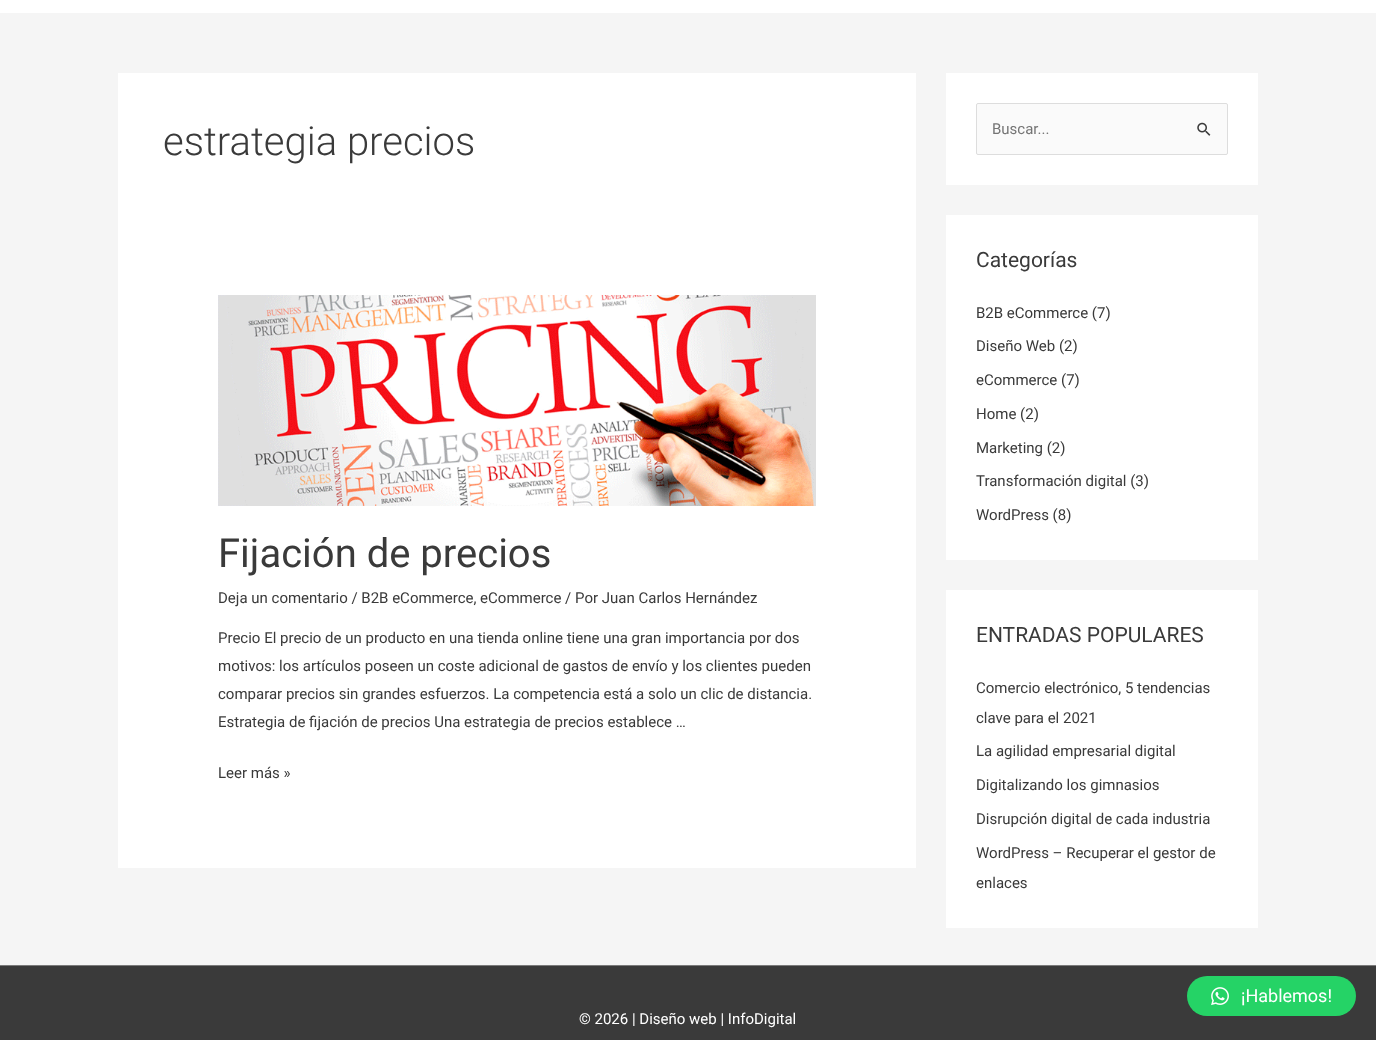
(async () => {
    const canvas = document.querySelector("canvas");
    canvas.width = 1376;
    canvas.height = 1040;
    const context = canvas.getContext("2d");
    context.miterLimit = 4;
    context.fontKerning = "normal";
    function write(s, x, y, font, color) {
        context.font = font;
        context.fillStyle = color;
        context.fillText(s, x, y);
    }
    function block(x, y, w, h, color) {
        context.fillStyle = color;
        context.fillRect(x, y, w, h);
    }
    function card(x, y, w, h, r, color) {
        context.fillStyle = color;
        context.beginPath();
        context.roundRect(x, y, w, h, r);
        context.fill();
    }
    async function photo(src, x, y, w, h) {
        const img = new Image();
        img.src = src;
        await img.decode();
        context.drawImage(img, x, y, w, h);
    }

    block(0, 0, 1376, 1040, "rgb(245, 245, 245)");
    block(0, 0, 1376, 13, "rgb(255, 255, 255)");
    block(118, 73, 798, 795, "rgb(255, 255, 255)");
    write("estrategia precios", 163, 155, "300 40px Roboto", "rgb(58, 58, 58)");
    await photo("media/1.png", 218, 295, 598, 211);
    write("Fijación de precios", 218, 567, "40px Roboto", "rgb(58, 58, 58)");
    write("Deja un comentario / B2B eCommerce, eCommerce / Por Juan Carlos Hernández", 218, 603, "15px Roboto", "rgb(58, 58, 58)");
    write("Precio El precio de un producto en una tienda online tiene una gran importancia por dos", 218, 643, "15px Roboto", "rgb(58, 58, 58)");
    write("motivos: los artículos poseen un coste adicional de gastos de envío y los clientes pueden", 218, 671, "15px Roboto", "rgb(58, 58, 58)");
    write("comparar precios sin grandes esfuerzos. La competencia está a solo un clic de distancia.", 218, 699, "15px Roboto", "rgb(58, 58, 58)");
    write("Estrategia de fijación de precios Una estrategia de precios establece …", 218, 727, "15px Roboto", "rgb(58, 58, 58)");
    write("Leer más »", 218, 778, "15px Roboto", "rgb(58, 58, 58)");
    block(946, 73, 312, 112, "rgb(255, 255, 255)");
    context.fillStyle = "rgb(250, 250, 250)";
    context.beginPath();
    context.roundRect(976.5, 103.5, 251, 51, 1.5);
    context.fill();
    context.strokeStyle = "rgb(221, 221, 221)";
    context.stroke();
    write("Buscar...", 992, 134, "15px Roboto", "rgb(117, 117, 117)");
    await photo("media/2.png", 1197, 122, 14, 14);
    block(946, 215, 312, 345, "rgb(255, 255, 255)");
    write("Categorías", 976, 267, "21px Roboto", "rgb(58, 58, 58)");
    write("B2B eCommerce (7)", 976, 318, "15px Roboto", "rgb(58, 58, 58)");
    write("Diseño Web (2)", 976, 351, "15px Roboto", "rgb(58, 58, 58)");
    write("eCommerce (7)", 976, 385, "15px Roboto", "rgb(58, 58, 58)");
    write("Home (2)", 976, 419, "15px Roboto", "rgb(58, 58, 58)");
    write("Marketing (2)", 976, 453, "15px Roboto", "rgb(58, 58, 58)");
    write("Transformación digital (3)", 976, 486, "15px Roboto", "rgb(58, 58, 58)");
    write("WordPress (8)", 976, 520, "15px Roboto", "rgb(58, 58, 58)");
    block(946, 590, 312, 338, "rgb(255, 255, 255)");
    write("ENTRADAS POPULARES", 976, 642, "21px Roboto", "rgb(58, 58, 58)");
    write("Comercio electrónico, 5 tendencias", 976, 693, "15px Roboto", "rgb(58, 58, 58)");
    write("clave para el 2021", 976, 723, "15px Roboto", "rgb(58, 58, 58)");
    write("La agilidad empresarial digital", 976, 756, "15px Roboto", "rgb(58, 58, 58)");
    write("Digitalizando los gimnasios", 976, 790, "15px Roboto", "rgb(58, 58, 58)");
    write("Disrupción digital de cada industria", 976, 824, "15px Roboto", "rgb(58, 58, 58)");
    write("WordPress – Recuperar el gestor de", 976, 858, "15px Roboto", "rgb(58, 58, 58)");
    write("enlaces", 976, 888, "15px Roboto", "rgb(58, 58, 58)");
    block(0, 965, 1376, 1, "rgb(122, 122, 122)");
    block(0, 966, 1376, 74, "rgb(58, 58, 58)");
    write("© 2026 | Diseño web | InfoDigital", 579, 1024, "15px Roboto", "rgb(255, 255, 255)");
    card(1187, 976, 169, 40, 20, "rgb(37, 211, 102)");
    await photo("media/3.png", 1211, 987, 18, 19);
    write("¡Hablemos!", 1241, 1002, "18px Roboto", "rgb(255, 255, 255)");
})();
